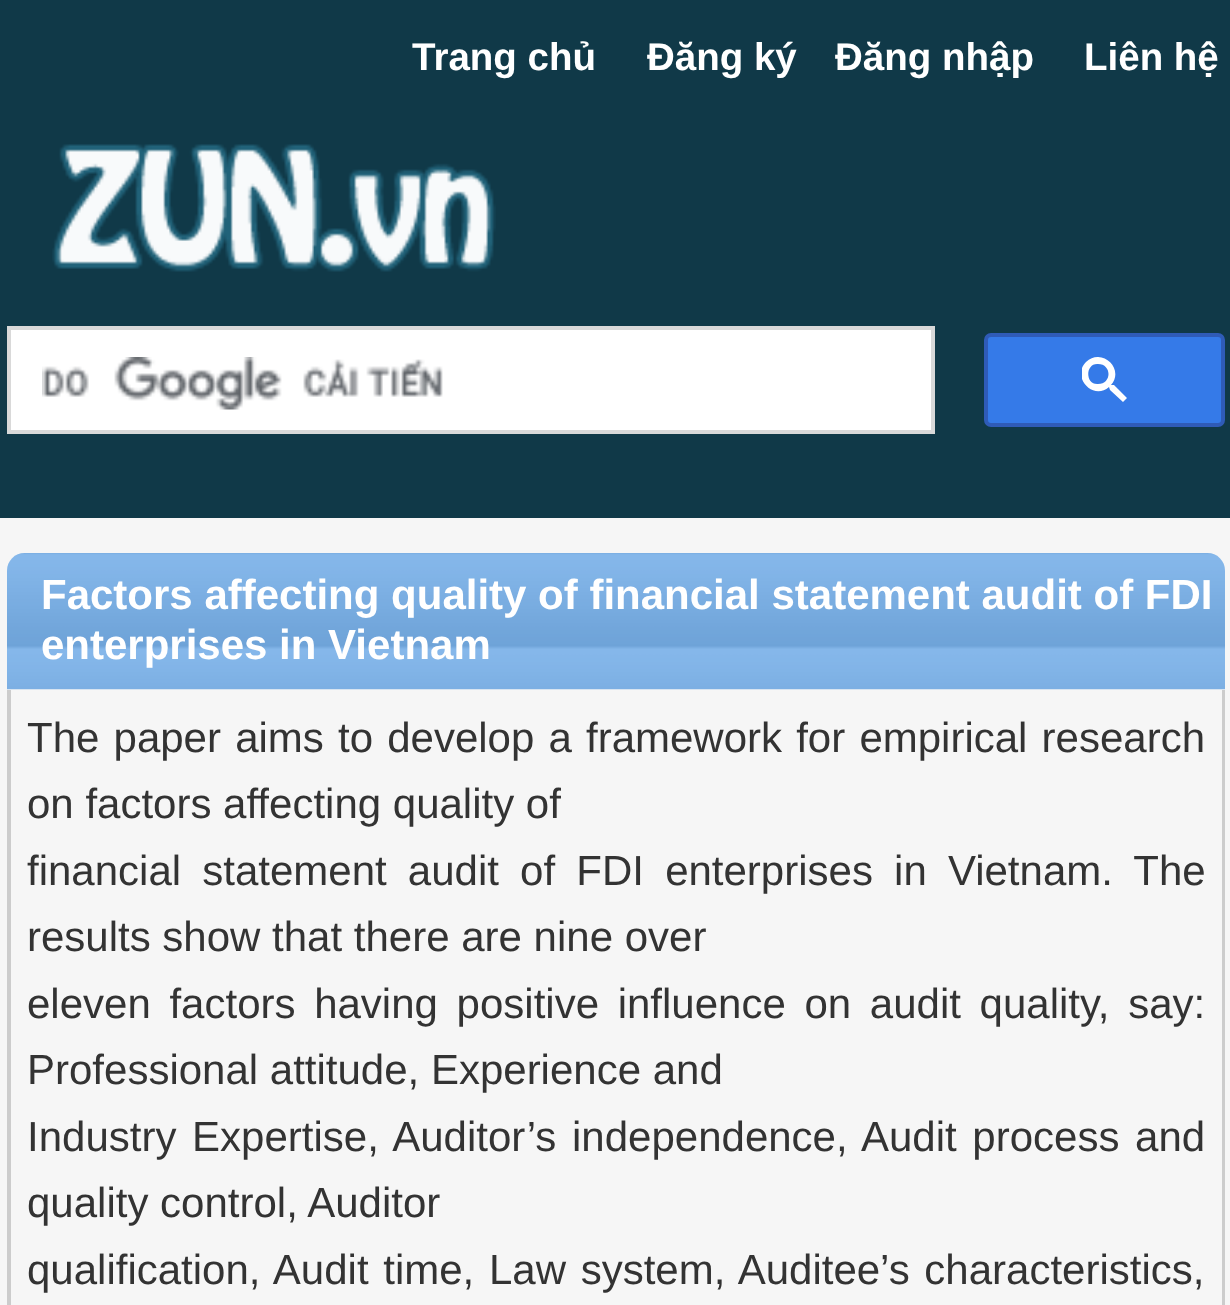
(async () => {
    const canvas = document.querySelector("canvas");
    canvas.width = 1230;
    canvas.height = 1305;
    const context = canvas.getContext("2d");
    context.miterLimit = 4;
    context.fontKerning = "normal";
    function write(s, x, y, font, color) {
        context.font = font;
        context.fillStyle = color;
        context.fillText(s, x, y);
    }
    function block(x, y, w, h, color) {
        context.fillStyle = color;
        context.fillRect(x, y, w, h);
    }
    async function photo(src, x, y, w, h) {
        const img = new Image();
        img.src = src;
        await img.decode();
        context.drawImage(img, x, y, w, h);
    }

    block(0, 0, 1230, 1305, "rgb(246, 246, 246)");
    block(0, 0, 1230, 518, "rgb(16, 57, 72)");
    write("Trang chủ", 412, 70, "bold 38.5px Liberation Sans", "rgb(255, 255, 255)");
    write("Đăng ký", 647, 70, "bold 38.5px Liberation Sans", "rgb(255, 255, 255)");
    write("Đăng nhập", 835, 70, "bold 38.5px Liberation Sans", "rgb(255, 255, 255)");
    write("Liên hệ", 1084, 70, "bold 38.5px Liberation Sans", "rgb(255, 255, 255)");
    await photo("media/1.png", 52, 144, 444, 128);
    context.beginPath();
    context.rect(9, 328, 924, 104);
    context.fill();
    context.strokeStyle = "rgb(217, 217, 217)";
    context.lineWidth = 4;
    context.stroke();
    await photo("media/2.png", 42, 357, 401, 53);
    context.fillStyle = "rgb(53, 122, 232)";
    context.beginPath();
    context.roundRect(986, 335, 237, 90, 5);
    context.fill();
    context.strokeStyle = "rgb(47, 91, 183)";
    context.stroke();
    context.save();
    context.beginPath();
    context.rect(1082, 357, 45, 46);
    context.clip();
    context.fillStyle = "rgb(255, 255, 255)";
    context.beginPath();
    context.moveTo(1098, 384);
    context.bezierCurveTo(1112, 384, 1112, 364, 1098, 364);
    context.bezierCurveTo(1085, 363, 1085, 385, 1098, 384);
    context.closePath();
    context.moveTo(1114, 385);
    context.lineTo(1127, 398);
    context.lineTo(1123, 402);
    context.lineTo(1110, 390);
    context.lineTo(1109, 387);
    context.bezierCurveTo(1093, 401, 1071, 377, 1086, 362);
    context.bezierCurveTo(1102, 347, 1125, 369, 1111, 385);
    context.lineTo(1112, 385);
    context.closePath();
    context.fill();
    context.restore();
    await photo("media/3.png", 7, 553, 1218, 137);
    write("Factors affecting quality of financial statement audit of FDI", 41, 609, "bold 42px Liberation Sans", "rgb(255, 255, 255)");
    write("enterprises in Vietnam", 41, 659, "bold 42px Liberation Sans", "rgb(255, 255, 255)");
    block(1222, 690, 3, 615, "rgb(204, 204, 204)");
    block(7, 690, 4, 615, "rgb(204, 204, 204)");
    context.wordSpacing = "2.5px";
    write("The paper aims to develop a framework for empirical research", 27, 752, "42px Liberation Sans", "rgb(51, 51, 51)");
    context.wordSpacing = "0px";
    write("on factors affecting quality of", 27, 818, "42px Liberation Sans", "rgb(51, 51, 51)");
    context.wordSpacing = "9.5px";
    write("financial statement audit of FDI enterprises in Vietnam. The", 27, 885, "42px Liberation Sans", "rgb(51, 51, 51)");
    context.wordSpacing = "0px";
    write("results show that there are nine over", 27, 951, "42px Liberation Sans", "rgb(51, 51, 51)");
    context.wordSpacing = "7px";
    write("eleven factors having positive influence on audit quality, say:", 27, 1018, "42px Liberation Sans", "rgb(51, 51, 51)");
    context.wordSpacing = "0px";
    write("Professional attitude, Experience and", 27, 1084, "42px Liberation Sans", "rgb(51, 51, 51)");
    context.wordSpacing = "4px";
    write("Industry Expertise, Auditor’s independence, Audit process and", 27, 1151, "42px Liberation Sans", "rgb(51, 51, 51)");
    context.wordSpacing = "0px";
    write("quality control, Auditor", 27, 1217, "42px Liberation Sans", "rgb(51, 51, 51)");
    context.wordSpacing = "3px";
    write("qualification, Audit time, Law system, Auditee’s characteristics,", 27, 1284, "42px Liberation Sans", "rgb(51, 51, 51)");
})();
